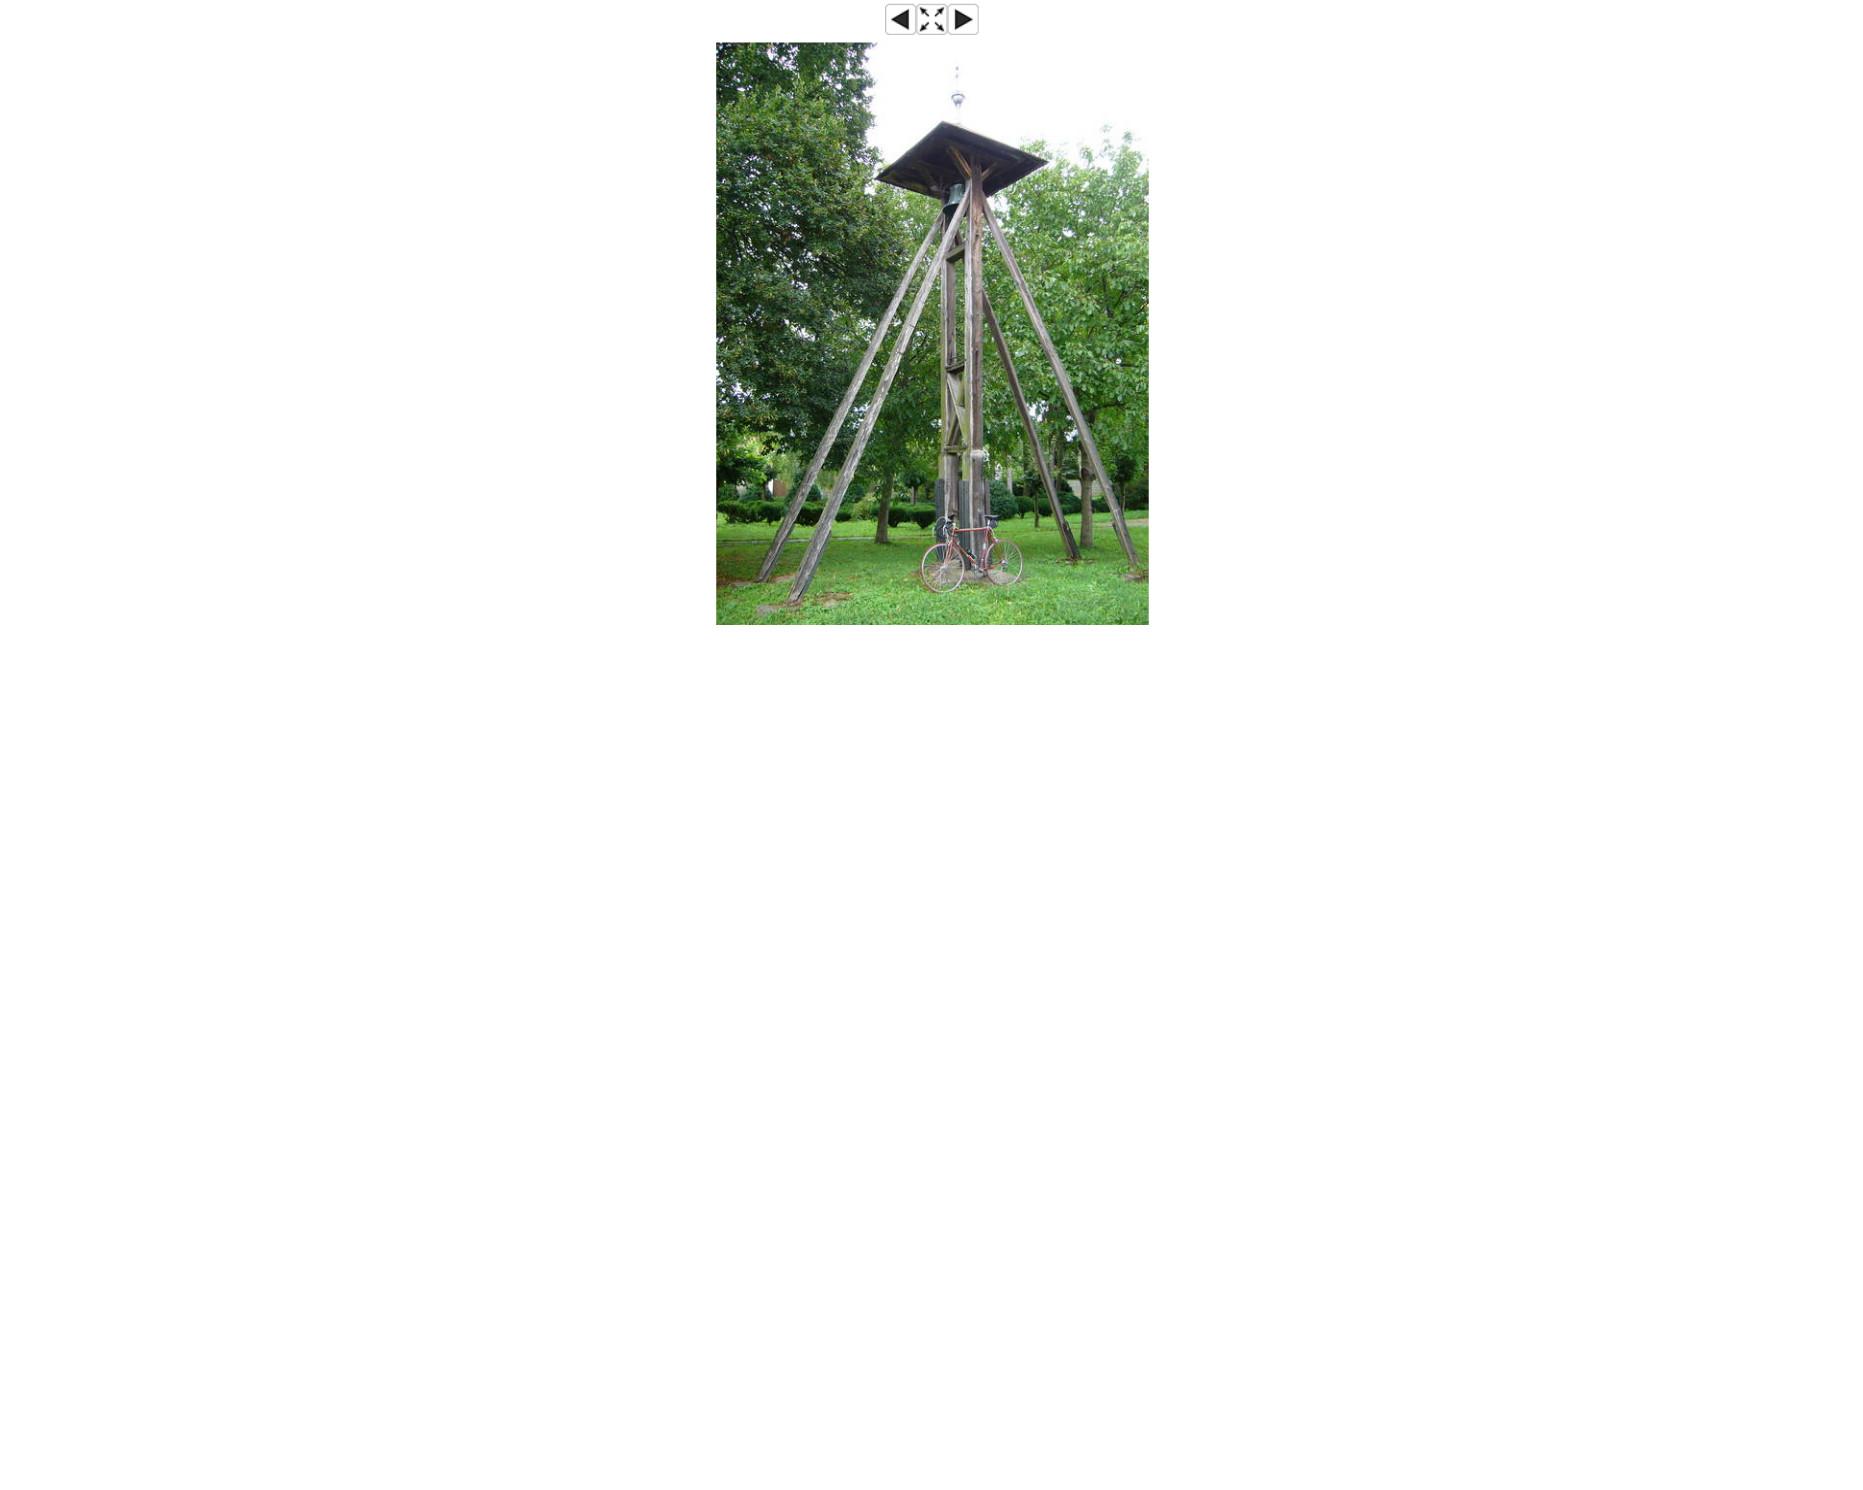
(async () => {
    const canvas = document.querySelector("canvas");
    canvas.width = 1863;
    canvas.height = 1490;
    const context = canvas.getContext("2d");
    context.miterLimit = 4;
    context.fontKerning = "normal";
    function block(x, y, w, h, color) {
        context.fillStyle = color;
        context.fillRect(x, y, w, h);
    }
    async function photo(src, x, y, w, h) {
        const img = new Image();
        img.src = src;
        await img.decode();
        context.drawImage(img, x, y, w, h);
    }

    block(0, 0, 1863, 1490, "rgb(255, 255, 255)");
    await photo("media/1.png", 885, 3, 32, 32);
    await photo("media/2.png", 916, 3, 32, 32);
    await photo("media/3.png", 947, 3, 32, 32);
    await photo("media/4.png", 716, 42, 433, 583);
})();
